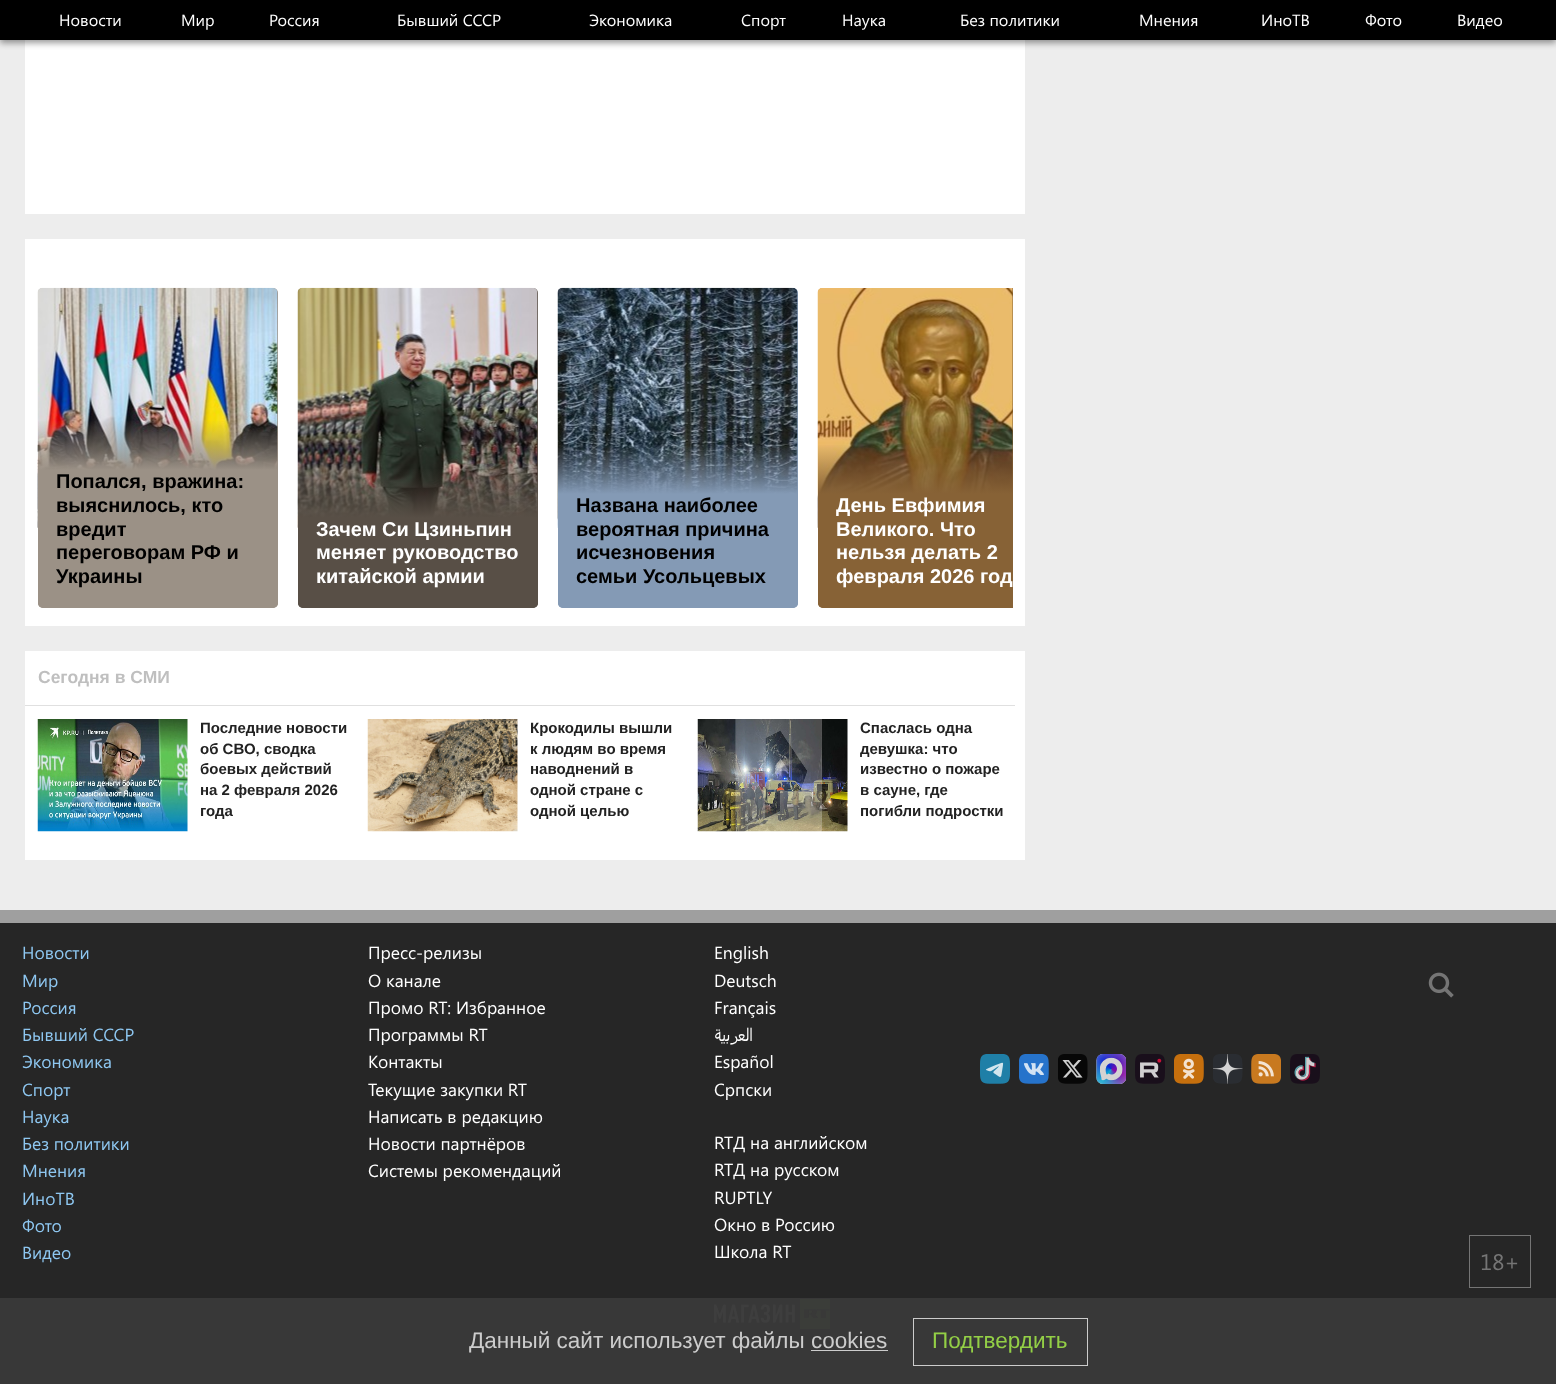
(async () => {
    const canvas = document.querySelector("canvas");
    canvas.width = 1556;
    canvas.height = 1384;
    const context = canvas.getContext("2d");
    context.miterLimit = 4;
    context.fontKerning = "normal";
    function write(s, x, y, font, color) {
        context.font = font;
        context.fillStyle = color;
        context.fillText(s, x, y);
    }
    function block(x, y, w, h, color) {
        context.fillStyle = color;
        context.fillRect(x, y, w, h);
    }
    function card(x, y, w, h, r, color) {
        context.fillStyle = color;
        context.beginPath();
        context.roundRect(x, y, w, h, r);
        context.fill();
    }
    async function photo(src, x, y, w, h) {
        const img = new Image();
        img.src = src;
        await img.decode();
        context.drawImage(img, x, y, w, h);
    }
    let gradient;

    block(0, 0, 1556, 1384, "rgb(56, 56, 56)");
    block(0, 40, 1556, 870, "rgb(237, 237, 237)");
    context.fillStyle = "rgb(102, 102, 102)";
    context.filter = "blur(0.5px)";
    context.beginPath();
    context.rect(25, 23, 1000, 191);
    context.fill();
    context.filter = "none";
    block(25, 40, 1000, 174, "rgb(255, 255, 255)");
    context.fillStyle = "rgba(0, 0, 0, 0.4)";
    context.filter = "blur(3px)";
    context.beginPath();
    context.rect(0, 3, 1556, 40);
    context.fill();
    context.filter = "none";
    block(0, 0, 1556, 40, "rgb(0, 0, 0)");
    write("Новости", 59, 26, "16.25px Segoe UI", "rgb(255, 255, 255)");
    write("Мир", 181, 26, "16.25px Segoe UI", "rgb(255, 255, 255)");
    write("Россия", 269, 26, "16.25px Segoe UI", "rgb(255, 255, 255)");
    write("Бывший СССР", 397, 26, "16.25px Segoe UI", "rgb(255, 255, 255)");
    write("Экономика", 589, 26, "16.25px Segoe UI", "rgb(255, 255, 255)");
    write("Спорт", 741, 26, "16.25px Segoe UI", "rgb(255, 255, 255)");
    write("Наука", 842, 26, "16.25px Segoe UI", "rgb(255, 255, 255)");
    write("Без политики", 960, 26, "16.25px Segoe UI", "rgb(255, 255, 255)");
    write("Мнения", 1139, 26, "16.25px Segoe UI", "rgb(255, 255, 255)");
    write("ИноТВ", 1261, 26, "16.25px Segoe UI", "rgb(255, 255, 255)");
    write("Фото", 1365, 26, "16.25px Segoe UI", "rgb(255, 255, 255)");
    write("Видео", 1457, 26, "16.25px Segoe UI", "rgb(255, 255, 255)");
    block(25, 239, 1000, 387, "rgb(255, 255, 255)");
    card(38, 288, 240, 320, 5, "rgb(155, 145, 134)");
    await photo("media/1.png", 37, 287, 241, 241);
    context.beginPath();
    context.roundRect(38, 470, 240, 138, [0, 0, 5, 5]);
    context.fill();
    gradient = context.createLinearGradient(158, 420, 158, 470);
    gradient.addColorStop(0, "rgba(155, 145, 134, 0)");
    gradient.addColorStop(1, "rgb(155, 145, 134)");
    context.fillStyle = gradient;
    context.fillRect(38, 421, 240, 49);
    write("Попался, вражина:", 56, 488, "bold 20px Liberation Sans", "rgb(0, 0, 0)");
    write("выяснилось, кто", 56, 512, "bold 20px Liberation Sans", "rgb(0, 0, 0)");
    write("вредит", 56, 536, "bold 20px Liberation Sans", "rgb(0, 0, 0)");
    write("переговорам РФ и", 56, 559, "bold 20px Liberation Sans", "rgb(0, 0, 0)");
    write("Украины", 56, 583, "bold 20px Liberation Sans", "rgb(0, 0, 0)");
    card(298, 288, 240, 320, 5, "rgb(88, 79, 70)");
    await photo("media/2.png", 297, 287, 241, 241);
    context.beginPath();
    context.roundRect(298, 518, 240, 90, [0, 0, 5, 5]);
    context.fill();
    gradient = context.createLinearGradient(418, 468, 418, 518);
    gradient.addColorStop(0, "rgba(88, 79, 70, 0)");
    gradient.addColorStop(1, "rgb(88, 79, 70)");
    context.fillStyle = gradient;
    context.fillRect(298, 469, 240, 49);
    write("Зачем Си Цзиньпин", 316, 536, "bold 20px Liberation Sans", "rgb(255, 255, 255)");
    write("меняет руководство", 316, 559, "bold 20px Liberation Sans", "rgb(255, 255, 255)");
    write("китайской армии", 316, 583, "bold 20px Liberation Sans", "rgb(255, 255, 255)");
    card(558, 288, 240, 320, 5, "rgb(132, 154, 181)");
    await photo("media/3.png", 557, 287, 241, 241);
    context.beginPath();
    context.roundRect(558, 494, 240, 114, [0, 0, 5, 5]);
    context.fill();
    gradient = context.createLinearGradient(678, 444, 678, 494);
    gradient.addColorStop(0, "rgba(132, 154, 181, 0)");
    gradient.addColorStop(1, "rgb(132, 154, 181)");
    context.fillStyle = gradient;
    context.fillRect(558, 445, 240, 49);
    write("Названа наиболее", 576, 512, "bold 20px Liberation Sans", "rgb(0, 0, 0)");
    write("вероятная причина", 576, 536, "bold 20px Liberation Sans", "rgb(0, 0, 0)");
    write("исчезновения", 576, 559, "bold 20px Liberation Sans", "rgb(0, 0, 0)");
    write("семьи Усольцевых", 576, 583, "bold 20px Liberation Sans", "rgb(0, 0, 0)");
    context.fillStyle = "rgb(135, 98, 54)";
    context.beginPath();
    context.roundRect(818, 288, 195, 320, [5, 0, 0, 5]);
    context.fill();
    await photo("media/4.png", 817, 288, 196, 240);
    context.beginPath();
    context.roundRect(818, 494, 195, 114, [0, 0, 0, 5]);
    context.fill();
    gradient = context.createLinearGradient(938, 444, 938, 494);
    gradient.addColorStop(0, "rgba(135, 98, 54, 0)");
    gradient.addColorStop(1, "rgb(135, 98, 54)");
    context.fillStyle = gradient;
    context.fillRect(818, 445, 195, 49);
    write("День Евфимия", 836, 512, "bold 20px Liberation Sans", "rgb(255, 255, 255)");
    write("Великого. Что", 836, 536, "bold 20px Liberation Sans", "rgb(255, 255, 255)");
    write("нельзя делать 2", 836, 559, "bold 20px Liberation Sans", "rgb(255, 255, 255)");
    write("февраля 2026 год", 836, 583, "bold 20px Liberation Sans", "rgb(255, 255, 255)");
    block(25, 651, 1000, 209, "rgb(255, 255, 255)");
    write("Сегодня в СМИ", 38, 683, "bold 17.5px Liberation Sans", "rgb(191, 191, 191)");
    block(25, 705, 990, 1, "rgb(224, 224, 224)");
    await photo("media/5.png", 37, 719, 151, 113);
    write("Последние новости", 200, 733, "bold 15px Liberation Sans", "rgb(34, 34, 34)");
    write("об СВО, сводка", 200, 754, "bold 15px Liberation Sans", "rgb(34, 34, 34)");
    write("боевых действий", 200, 774, "bold 15px Liberation Sans", "rgb(34, 34, 34)");
    write("на 2 февраля 2026", 200, 795, "bold 15px Liberation Sans", "rgb(34, 34, 34)");
    write("года", 200, 816, "bold 15px Liberation Sans", "rgb(34, 34, 34)");
    await photo("media/6.png", 367, 719, 151, 113);
    write("Крокодилы вышли", 530, 733, "bold 15px Liberation Sans", "rgb(34, 34, 34)");
    write("к людям во время", 530, 754, "bold 15px Liberation Sans", "rgb(34, 34, 34)");
    write("наводнений в", 530, 774, "bold 15px Liberation Sans", "rgb(34, 34, 34)");
    write("одной стране с", 530, 795, "bold 15px Liberation Sans", "rgb(34, 34, 34)");
    write("одной целью", 530, 816, "bold 15px Liberation Sans", "rgb(34, 34, 34)");
    await photo("media/7.png", 697, 719, 151, 113);
    write("Спаслась одна", 860, 733, "bold 15px Liberation Sans", "rgb(34, 34, 34)");
    write("девушка: что", 860, 754, "bold 15px Liberation Sans", "rgb(34, 34, 34)");
    write("известно о пожаре", 860, 774, "bold 15px Liberation Sans", "rgb(34, 34, 34)");
    write("в сауне, где", 860, 795, "bold 15px Liberation Sans", "rgb(34, 34, 34)");
    write("погибли подростки", 860, 816, "bold 15px Liberation Sans", "rgb(34, 34, 34)");
    block(0, 923, 1556, 375, "rgb(38, 38, 38)");
    block(0, 910, 1556, 13, "rgb(159, 159, 159)");
    write("Новости", 22, 959, "17.5px Segoe UI", "rgb(142, 199, 241)");
    write("Мир", 22, 987, "17.5px Segoe UI", "rgb(142, 199, 241)");
    write("Россия", 22, 1014, "17.5px Segoe UI", "rgb(142, 199, 241)");
    write("Бывший СССР", 22, 1041, "17.5px Segoe UI", "rgb(142, 199, 241)");
    write("Экономика", 22, 1068, "17.5px Segoe UI", "rgb(142, 199, 241)");
    write("Спорт", 22, 1096, "17.5px Segoe UI", "rgb(142, 199, 241)");
    write("Наука", 22, 1123, "17.5px Segoe UI", "rgb(142, 199, 241)");
    write("Без политики", 22, 1150, "17.5px Segoe UI", "rgb(142, 199, 241)");
    write("Мнения", 22, 1177, "17.5px Segoe UI", "rgb(142, 199, 241)");
    write("ИноТВ", 22, 1205, "17.5px Segoe UI", "rgb(142, 199, 241)");
    write("Фото", 22, 1232, "17.5px Segoe UI", "rgb(142, 199, 241)");
    write("Видео", 22, 1259, "17.5px Segoe UI", "rgb(142, 199, 241)");
    write("Пресс-релизы", 368, 959, "17.5px Segoe UI", "rgb(255, 255, 255)");
    write("О канале", 368, 987, "17.5px Segoe UI", "rgb(255, 255, 255)");
    write("Промо RT: Избранное", 368, 1014, "17.5px Segoe UI", "rgb(255, 255, 255)");
    write("Программы RT", 368, 1041, "17.5px Segoe UI", "rgb(255, 255, 255)");
    write("Контакты", 368, 1068, "17.5px Segoe UI", "rgb(255, 255, 255)");
    write("Текущие закупки RT", 368, 1096, "17.5px Segoe UI", "rgb(255, 255, 255)");
    write("Написать в редакцию", 368, 1123, "17.5px Segoe UI", "rgb(255, 255, 255)");
    write("Новости партнёров", 368, 1150, "17.5px Segoe UI", "rgb(255, 255, 255)");
    write("Системы рекомендаций", 368, 1177, "17.5px Segoe UI", "rgb(255, 255, 255)");
    write("English", 714, 959, "17.5px Segoe UI", "rgb(255, 255, 255)");
    write("Deutsch", 714, 987, "17.5px Segoe UI", "rgb(255, 255, 255)");
    write("Français", 714, 1014, "17.5px Segoe UI", "rgb(255, 255, 255)");
    context.direction = "rtl";
    write("العربية", 753, 1041, "17.5px Segoe UI", "rgb(255, 255, 255)");
    context.direction = "ltr";
    write("Español", 714, 1068, "17.5px Segoe UI", "rgb(255, 255, 255)");
    write("Српски", 714, 1096, "17.5px Segoe UI", "rgb(255, 255, 255)");
    write("RTД на английском", 714, 1149, "17.5px Segoe UI", "rgb(255, 255, 255)");
    write("RTД на русском", 714, 1176, "17.5px Segoe UI", "rgb(255, 255, 255)");
    write("RUPTLY", 714, 1204, "17.5px Segoe UI", "rgb(255, 255, 255)");
    write("Окно в Россию", 714, 1231, "17.5px Segoe UI", "rgb(255, 255, 255)");
    write("Школа RT", 714, 1258, "17.5px Segoe UI", "rgb(255, 255, 255)");
    await photo("media/8.png", 714, 1299, 116, 30);
    await photo("media/9.png", 980, 1054, 30, 30);
    await photo("media/10.png", 1019, 1054, 30, 30);
    await photo("media/11.png", 1058, 1054, 30, 30);
    await photo("media/12.png", 1096, 1054, 30, 30);
    await photo("media/13.png", 1135, 1054, 30, 30);
    await photo("media/14.png", 1174, 1054, 30, 30);
    await photo("media/15.png", 1213, 1054, 30, 30);
    await photo("media/16.png", 1251, 1054, 30, 30);
    await photo("media/17.png", 1290, 1054, 30, 30);
    await photo("media/18.png", 1428, 972, 26, 26);
    context.strokeStyle = "rgb(117, 117, 117)";
    context.strokeRect(1469.5, 1235.5, 61, 52);
    write("18+", 1480, 1270, "22.5px Segoe UI", "rgb(117, 117, 117)");
    write("Данный сайт использует файлы cookies", 469, 1348, "22.5px Liberation Sans", "rgb(204, 204, 204)");
    block(811, 1350, 77, 1, "rgb(204, 204, 204)");
    context.strokeStyle = "rgb(204, 204, 204)";
    context.strokeRect(913.5, 1318.5, 174, 47);
    write("Подтвердить", 932, 1348, "22.5px Liberation Sans", "rgb(147, 207, 70)");
})();
